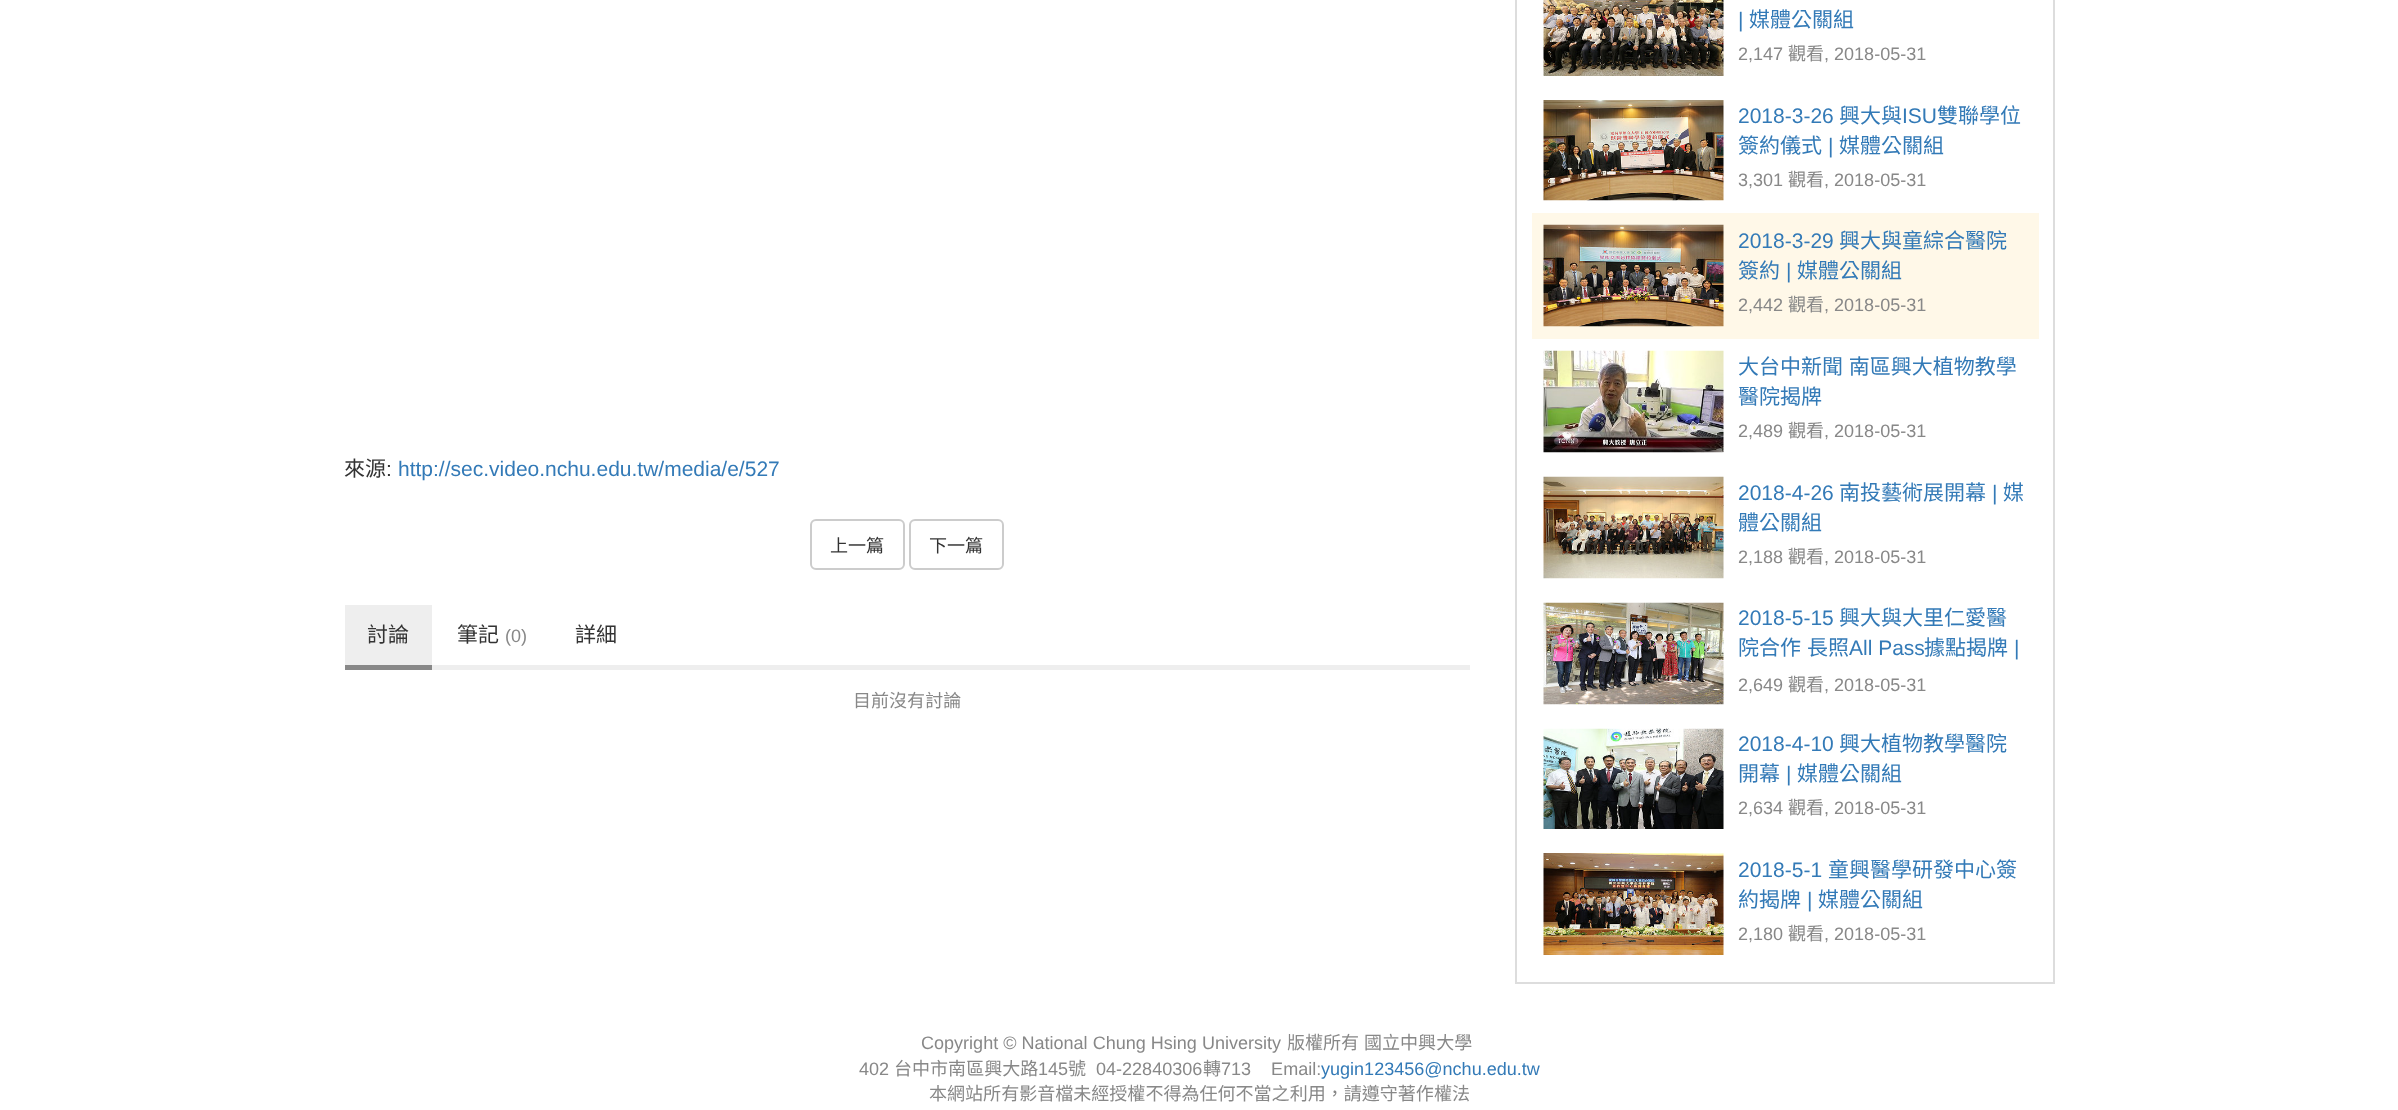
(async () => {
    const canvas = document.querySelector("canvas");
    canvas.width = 2398;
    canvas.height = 1110;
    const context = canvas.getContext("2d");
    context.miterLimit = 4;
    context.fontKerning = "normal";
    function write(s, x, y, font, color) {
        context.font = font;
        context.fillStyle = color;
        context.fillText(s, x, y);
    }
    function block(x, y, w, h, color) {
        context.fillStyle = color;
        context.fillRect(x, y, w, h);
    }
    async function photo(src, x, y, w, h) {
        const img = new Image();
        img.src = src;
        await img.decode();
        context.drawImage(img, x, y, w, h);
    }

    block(0, 0, 2398, 1110, "rgb(255, 255, 255)");
    write("來源", 344, 476, "21px Noto Sans CJK TC", "rgb(51, 51, 51)");
    write(":", 386, 476, "21px Liberation Sans", "rgb(51, 51, 51)");
    write("http://sec.video.nchu.edu.tw/media/e/527", 398, 476, "21px Liberation Sans", "rgb(51, 122, 183)");
    context.beginPath();
    context.roundRect(811, 520, 93, 49, 5);
    context.strokeStyle = "rgb(204, 204, 204)";
    context.lineWidth = 2;
    context.stroke();
    write("上一篇", 830, 552, "18.05px Noto Sans CJK TC", "rgb(51, 51, 51)");
    context.beginPath();
    context.roundRect(910, 520, 93, 49, 5);
    context.stroke();
    write("下一篇", 929, 552, "18.05px Noto Sans CJK TC", "rgb(51, 51, 51)");
    block(345, 605, 87, 60, "rgb(238, 238, 238)");
    block(345, 665, 87, 5, "rgb(136, 136, 136)");
    write("討論", 367, 642, "21px Noto Sans CJK TC", "rgb(51, 51, 51)");
    write("筆記", 457, 642, "21px Noto Sans CJK TC", "rgb(51, 51, 51)");
    write("(0)", 505, 642, "18.05px Liberation Sans", "rgb(136, 136, 136)");
    write("詳細", 575, 642, "21px Noto Sans CJK TC", "rgb(51, 51, 51)");
    block(432, 665, 1038, 5, "rgb(238, 238, 238)");
    write("目前沒有討論", 853, 707, "18.05px Noto Sans CJK TC", "rgb(136, 136, 136)");
    context.strokeStyle = "rgb(221, 221, 221)";
    context.strokeRect(1516, -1, 538, 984);
    await photo("media/1.png", 1543, 0, 181, 76);
    write("|", 1738, 27, "21px Liberation Sans", "rgb(51, 122, 183)");
    write("媒體公關組", 1749, 27, "21px Noto Sans CJK TC", "rgb(51, 122, 183)");
    write("2,147", 1738, 60, "18.05px Liberation Sans", "rgb(136, 136, 136)");
    write("觀看", 1788, 60, "18.05px Noto Sans CJK TC", "rgb(136, 136, 136)");
    write(", 2018-05-31", 1824, 60, "18.05px Liberation Sans", "rgb(136, 136, 136)");
    await photo("media/2.png", 1543, 100, 181, 101);
    write("2018-3-26", 1738, 123, "21px Liberation Sans", "rgb(51, 122, 183)");
    write("興大與", 1839, 123, "21px Noto Sans CJK TC", "rgb(51, 122, 183)");
    write("ISU", 1902, 123, "21px Liberation Sans", "rgb(51, 122, 183)");
    write("雙聯學位", 1937, 123, "21px Noto Sans CJK TC", "rgb(51, 122, 183)");
    context.save();
    context.beginPath();
    context.rect(1739, 101, 288, 60);
    context.clip();
    write("簽約儀式", 1738, 153, "21px Noto Sans CJK TC", "rgb(51, 122, 183)");
    context.restore();
    write("|", 1828, 153, "21px Liberation Sans", "rgb(51, 122, 183)");
    write("媒體公關組", 1839, 153, "21px Noto Sans CJK TC", "rgb(51, 122, 183)");
    write("3,301", 1738, 186, "18.05px Liberation Sans", "rgb(136, 136, 136)");
    write("觀看", 1788, 186, "18.05px Noto Sans CJK TC", "rgb(136, 136, 136)");
    write(", 2018-05-31", 1824, 186, "18.05px Liberation Sans", "rgb(136, 136, 136)");
    block(1532, 213, 507, 126, "rgb(255, 248, 232)");
    await photo("media/3.png", 1543, 224, 181, 103);
    write("2018-3-29", 1738, 248, "21px Liberation Sans", "rgb(51, 122, 183)");
    write("興大與童綜合醫院", 1839, 248, "21px Noto Sans CJK TC", "rgb(51, 122, 183)");
    context.save();
    context.beginPath();
    context.rect(1739, 225, 288, 60);
    context.clip();
    write("簽約", 1738, 278, "21px Noto Sans CJK TC", "rgb(51, 122, 183)");
    context.restore();
    write("|", 1786, 278, "21px Liberation Sans", "rgb(51, 122, 183)");
    write("媒體公關組", 1797, 278, "21px Noto Sans CJK TC", "rgb(51, 122, 183)");
    write("2,442", 1738, 311, "18.05px Liberation Sans", "rgb(136, 136, 136)");
    write("觀看", 1788, 311, "18.05px Noto Sans CJK TC", "rgb(136, 136, 136)");
    write(", 2018-05-31", 1824, 311, "18.05px Liberation Sans", "rgb(136, 136, 136)");
    await photo("media/4.png", 1543, 350, 181, 103);
    context.wordSpacing = "1px";
    write("大台中新聞 南區興大植物教學", 1738, 374, "21px Noto Sans CJK TC", "rgb(51, 122, 183)");
    context.wordSpacing = "0px";
    write("醫院揭牌", 1738, 404, "21px Noto Sans CJK TC", "rgb(51, 122, 183)");
    write("2,489", 1738, 437, "18.05px Liberation Sans", "rgb(136, 136, 136)");
    write("觀看", 1788, 437, "18.05px Noto Sans CJK TC", "rgb(136, 136, 136)");
    write(", 2018-05-31", 1824, 437, "18.05px Liberation Sans", "rgb(136, 136, 136)");
    await photo("media/5.png", 1543, 476, 181, 103);
    write("2018-4-26", 1738, 500, "21px Liberation Sans", "rgb(51, 122, 183)");
    write("南投藝術展開幕", 1839, 500, "21px Noto Sans CJK TC", "rgb(51, 122, 183)");
    write("|", 1992, 500, "21px Liberation Sans", "rgb(51, 122, 183)");
    write("媒", 2003, 500, "21px Noto Sans CJK TC", "rgb(51, 122, 183)");
    context.save();
    context.beginPath();
    context.rect(1739, 477, 288, 60);
    context.clip();
    write("體公關組", 1738, 530, "21px Noto Sans CJK TC", "rgb(51, 122, 183)");
    context.restore();
    write("2,188", 1738, 563, "18.05px Liberation Sans", "rgb(136, 136, 136)");
    write("觀看", 1788, 563, "18.05px Noto Sans CJK TC", "rgb(136, 136, 136)");
    write(", 2018-05-31", 1824, 563, "18.05px Liberation Sans", "rgb(136, 136, 136)");
    await photo("media/6.png", 1543, 602, 181, 103);
    write("2018-5-15", 1738, 625, "21px Liberation Sans", "rgb(51, 122, 183)");
    write("興大與大里仁愛醫", 1839, 625, "21px Noto Sans CJK TC", "rgb(51, 122, 183)");
    write("院合作", 1738, 655, "21px Noto Sans CJK TC", "rgb(51, 122, 183)");
    write("長照", 1807, 655, "21px Noto Sans CJK TC", "rgb(51, 122, 183)");
    write("All Pass", 1849, 655, "21px Liberation Sans", "rgb(51, 122, 183)");
    write("據點揭牌", 1924, 655, "21px Noto Sans CJK TC", "rgb(51, 122, 183)");
    write("|", 2014, 655, "21px Liberation Sans", "rgb(51, 122, 183)");
    write("2,649", 1738, 691, "18.05px Liberation Sans", "rgb(136, 136, 136)");
    write("觀看", 1788, 691, "18.05px Noto Sans CJK TC", "rgb(136, 136, 136)");
    write(", 2018-05-31", 1824, 691, "18.05px Liberation Sans", "rgb(136, 136, 136)");
    await photo("media/7.png", 1543, 728, 181, 101);
    write("2018-4-10", 1738, 751, "21px Liberation Sans", "rgb(51, 122, 183)");
    write("興大植物教學醫院", 1839, 751, "21px Noto Sans CJK TC", "rgb(51, 122, 183)");
    write("開幕", 1738, 781, "21px Noto Sans CJK TC", "rgb(51, 122, 183)");
    write("|", 1786, 781, "21px Liberation Sans", "rgb(51, 122, 183)");
    write("媒體公關組", 1797, 781, "21px Noto Sans CJK TC", "rgb(51, 122, 183)");
    write("2,634", 1738, 814, "18.05px Liberation Sans", "rgb(136, 136, 136)");
    write("觀看", 1788, 814, "18.05px Noto Sans CJK TC", "rgb(136, 136, 136)");
    write(", 2018-05-31", 1824, 814, "18.05px Liberation Sans", "rgb(136, 136, 136)");
    await photo("media/8.png", 1543, 853, 181, 102);
    write("2018-5-1", 1738, 877, "21px Liberation Sans", "rgb(51, 122, 183)");
    write("童興醫學研發中心簽", 1828, 877, "21px Noto Sans CJK TC", "rgb(51, 122, 183)");
    context.save();
    context.beginPath();
    context.rect(1739, 854, 288, 60);
    context.clip();
    write("約揭牌", 1738, 907, "21px Noto Sans CJK TC", "rgb(51, 122, 183)");
    context.restore();
    write("|", 1807, 907, "21px Liberation Sans", "rgb(51, 122, 183)");
    write("媒體公關組", 1818, 907, "21px Noto Sans CJK TC", "rgb(51, 122, 183)");
    write("2,180", 1738, 940, "18.05px Liberation Sans", "rgb(136, 136, 136)");
    write("觀看", 1788, 940, "18.05px Noto Sans CJK TC", "rgb(136, 136, 136)");
    write(", 2018-05-31", 1824, 940, "18.05px Liberation Sans", "rgb(136, 136, 136)");
    write("Copyright © National Chung Hsing University", 921, 1049, "18.05px Liberation Sans", "rgb(136, 136, 136)");
    write("版權所有", 1287, 1049, "18.05px Noto Sans CJK TC", "rgb(136, 136, 136)");
    write("國立中興大學", 1364, 1049, "18.05px Noto Sans CJK TC", "rgb(136, 136, 136)");
    write("402", 859, 1075, "18.05px Liberation Sans", "rgb(136, 136, 136)");
    write("台中市南區興大路", 894, 1075, "18.05px Noto Sans CJK TC", "rgb(136, 136, 136)");
    write("145", 1038, 1075, "18.05px Liberation Sans", "rgb(136, 136, 136)");
    write("號", 1068, 1075, "18.05px Noto Sans CJK TC", "rgb(136, 136, 136)");
    write("04-22840306", 1096, 1075, "18.05px Liberation Sans", "rgb(136, 136, 136)");
    write("轉", 1203, 1075, "18.05px Noto Sans CJK TC", "rgb(136, 136, 136)");
    write("713    Email:", 1221, 1075, "18.05px Liberation Sans", "rgb(136, 136, 136)");
    write("yugin123456@nchu.edu.tw", 1321, 1075, "18.05px Liberation Sans", "rgb(51, 122, 183)");
    write("本網站所有影音檔未經授權不得為任何不當之利用，請遵守著作權法", 929, 1100, "18.05px Noto Sans CJK TC", "rgb(136, 136, 136)");
})();
